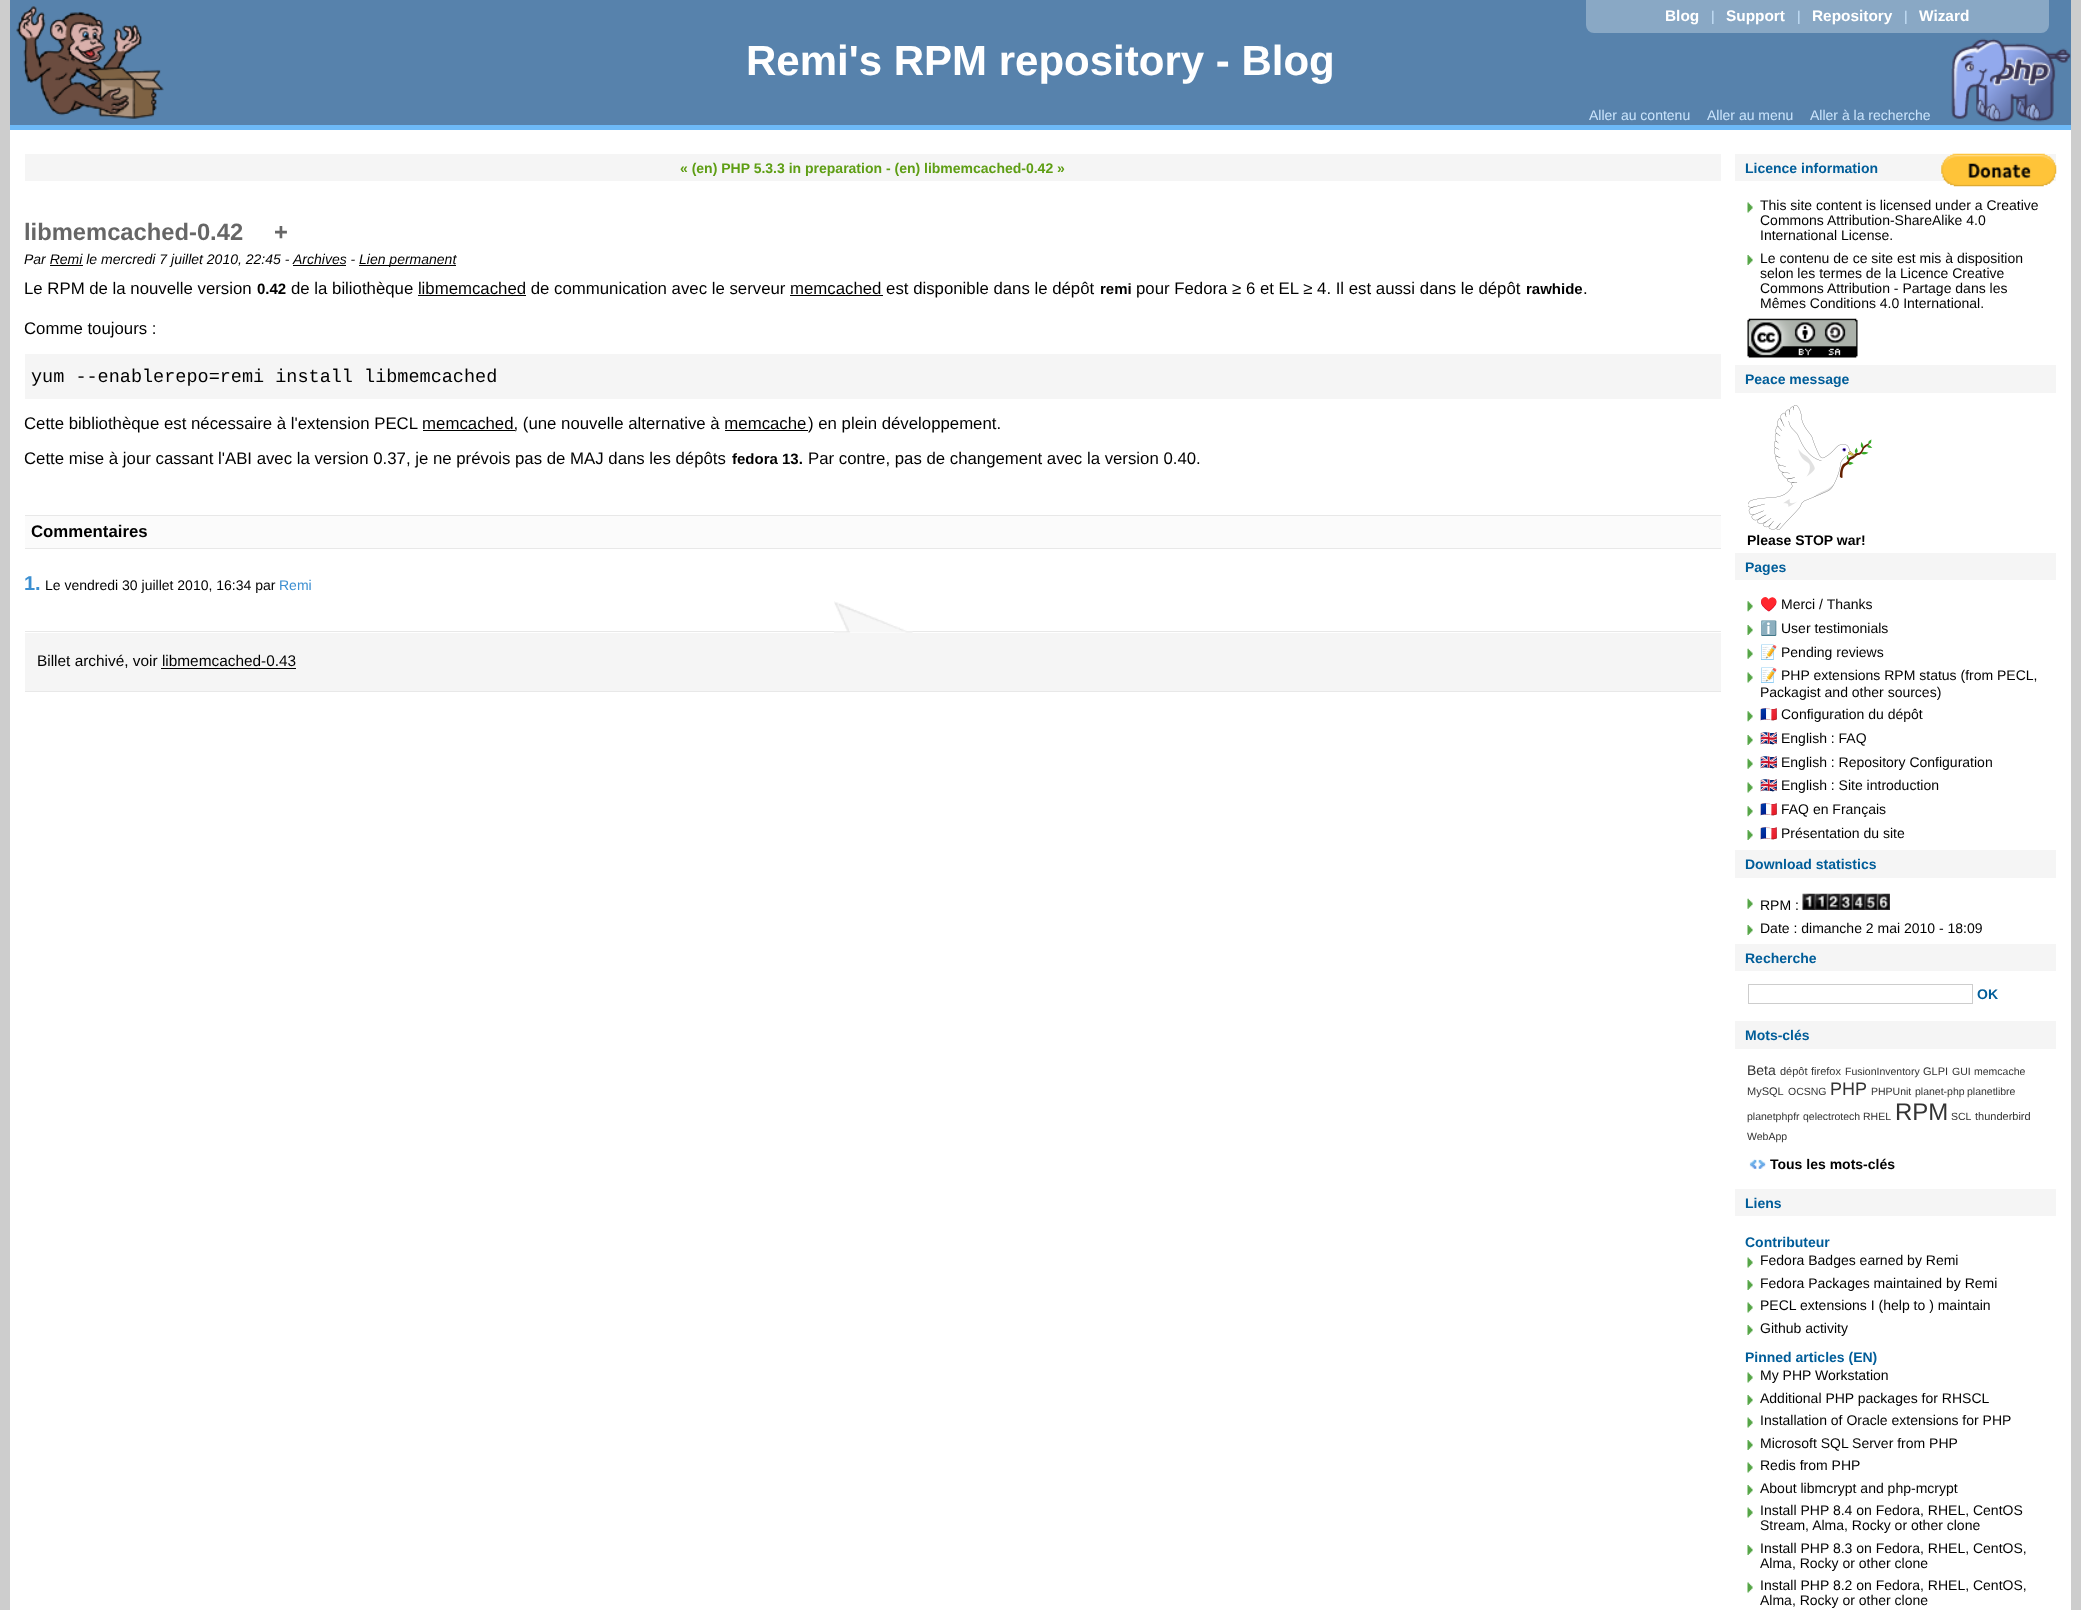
(async () => {
    const canvas = document.querySelector("canvas");
    canvas.width = 2081;
    canvas.height = 1610;
    const context = canvas.getContext("2d");
    context.miterLimit = 4;
    context.fontKerning = "normal";
    function write(s, x, y, font, color) {
        context.font = font;
        context.fillStyle = color;
        context.fillText(s, x, y);
    }
    function block(x, y, w, h, color) {
        context.fillStyle = color;
        context.fillRect(x, y, w, h);
    }
    async function photo(src, x, y, w, h) {
        const img = new Image();
        img.src = src;
        await img.decode();
        context.drawImage(img, x, y, w, h);
    }

    block(0, 0, 2081, 1610, "rgb(205, 205, 205)");
    block(10, 130, 2061, 1480, "rgb(255, 255, 255)");
    block(10, 0, 2061, 125, "rgb(87, 130, 172)");
    context.fillStyle = "rgb(137, 168, 197)";
    context.beginPath();
    context.roundRect(1586, 0, 463, 33, [0, 0, 8, 8]);
    context.fill();
    write("Blog", 1665, 21, "bold 15.4px Liberation Sans", "rgb(255, 255, 255)");
    write("|", 1711, 21, "14px Liberation Sans", "rgb(202, 228, 252)");
    write("Support", 1726, 21, "bold 15.4px Liberation Sans", "rgb(255, 255, 255)");
    write("|", 1797, 21, "14px Liberation Sans", "rgb(202, 228, 252)");
    write("Repository", 1812, 21, "bold 15.4px Liberation Sans", "rgb(255, 255, 255)");
    write("|", 1904, 21, "14px Liberation Sans", "rgb(202, 228, 252)");
    write("Wizard", 1919, 21, "bold 15.4px Liberation Sans", "rgb(255, 255, 255)");
    await photo("media/1.png", 1951, 38, 120, 84);
    block(10, 125, 2061, 5, "rgb(109, 185, 247)");
    await photo("media/2.png", 16, 6, 148, 113);
    write("Remi's RPM repository - Blog", 746, 75, "bold 42px Liberation Sans", "rgb(255, 255, 255)");
    write("Aller au contenu", 1589, 120, "14px Liberation Sans", "rgb(202, 228, 252)");
    write("Aller au menu", 1707, 120, "14px Liberation Sans", "rgb(202, 228, 252)");
    write("Aller à la recherche", 1810, 120, "14px Liberation Sans", "rgb(202, 228, 252)");
    block(25, 154, 1696, 27, "rgb(245, 245, 245)");
    write("« (en) PHP 5.3.3 in preparation - (en) libmemcached-0.42 »", 680, 173, "bold 14px Liberation Sans", "rgb(94, 158, 20)");
    write("libmemcached-0.42", 24, 240, "bold 23.75px Liberation Sans", "rgb(102, 102, 102)");
    write("+", 274, 240, "bold 23.75px Liberation Sans", "rgb(102, 102, 102)");
    write("Par Remi le mercredi 7 juillet 2010, 22:45 -", 24, 264, "italic 14px Liberation Sans", "rgb(0, 0, 0)");
    write("Archives -", 293, 264, "italic 14px Liberation Sans", "rgb(0, 0, 0)");
    block(293, 265, 53, 1, "rgb(0, 0, 0)");
    block(359, 265, 97, 1, "rgb(0, 0, 0)");
    write("Lien permanent", 359, 264, "italic 14px Liberation Sans", "rgb(0, 0, 0)");
    block(50, 265, 33, 1, "rgb(0, 0, 0)");
    write("Le RPM de la nouvelle version", 24, 294, "16.8px Liberation Sans", "rgb(0, 0, 0)");
    write("0.42", 257, 294, "bold 15px Liberation Sans", "rgb(0, 0, 0)");
    write("de la biliothèque libmemcached de communication avec le serveur memcached est disponible dans le dépôt", 291, 294, "16.8px Liberation Sans", "rgb(0, 0, 0)");
    write("remi", 1100, 294, "bold 15px Liberation Sans", "rgb(0, 0, 0)");
    write("pour Fedora ≥ 6 et EL ≥ 4. Il est aussi dans le dépôt", 1136, 294, "16.8px Liberation Sans", "rgb(0, 0, 0)");
    write("rawhide", 1526, 294, "bold 15px Liberation Sans", "rgb(0, 0, 0)");
    write(".", 1583, 294, "16.8px Liberation Sans", "rgb(0, 0, 0)");
    block(418, 295, 108, 1, "rgb(0, 0, 0)");
    block(790, 295, 93, 1, "rgb(0, 0, 0)");
    write("Comme toujours :", 24, 334, "16.8px Liberation Sans", "rgb(0, 0, 0)");
    block(25, 354, 1696, 45, "rgb(245, 245, 245)");
    write("yum --enablerepo=remi install libmemcached", 31, 382, "18.5px Liberation Mono", "rgb(0, 0, 0)");
    write("Cette bibliothèque est nécessaire à l'extension PECL memcached, (une nouvelle alternative à memcache", 24, 429, "16.8px Liberation Sans", "rgb(0, 0, 0)");
    block(725, 430, 83, 1, "rgb(0, 0, 0)");
    write(") en plein développement.", 808, 429, "16.8px Liberation Sans", "rgb(0, 0, 0)");
    block(423, 430, 92, 1, "rgb(0, 0, 0)");
    write("Cette mise à jour cassant l'ABI avec la version 0.37, je ne prévois pas de MAJ dans les dépôts", 24, 464, "16.8px Liberation Sans", "rgb(0, 0, 0)");
    write("fedora 13.", 732, 464, "bold 15px Liberation Sans", "rgb(0, 0, 0)");
    write("Par contre, pas de changement avec la version 0.40.", 808, 464, "16.8px Liberation Sans", "rgb(0, 0, 0)");
    block(25, 516, 1696, 32, "rgb(251, 251, 251)");
    block(25, 515, 1696, 1, "rgb(232, 232, 232)");
    block(25, 548, 1696, 1, "rgb(232, 232, 232)");
    write("Commentaires", 31, 537, "bold 16.8px Liberation Sans", "rgb(0, 0, 0)");
    block(25, 631, 1696, 1, "rgb(232, 232, 232)");
    await photo("media/3.png", 834, 601, 79, 32);
    write("1.", 24, 590, "bold 20px Liberation Sans", "rgb(60, 143, 209)");
    write("Le vendredi 30 juillet 2010, 16:34 par", 45, 590, "14px Liberation Sans", "rgb(0, 0, 0)");
    write("Remi", 279, 590, "14px Liberation Sans", "rgb(60, 143, 209)");
    block(25, 633, 1696, 58, "rgb(245, 245, 245)");
    block(25, 691, 1696, 1, "rgb(232, 232, 232)");
    write("Billet archivé, voir libmemcached-0.43", 37, 666, "15.4px Liberation Sans", "rgb(0, 0, 0)");
    block(161, 668, 135, 1, "rgb(0, 0, 0)");
    block(1735, 154, 321, 27, "rgb(245, 245, 245)");
    await photo("media/4.png", 1941, 153, 116, 34);
    write("Licence information", 1745, 173, "bold 14px Liberation Sans", "rgb(0, 93, 153)");
    await photo("media/5.png", 1747, 202, 6, 11);
    write("This site content is licensed under a Creative", 1760, 210, "14px Liberation Sans", "rgb(0, 0, 0)");
    write("Commons Attribution-ShareAlike 4.0", 1760, 225, "14px Liberation Sans", "rgb(0, 0, 0)");
    write("International License.", 1760, 240, "14px Liberation Sans", "rgb(0, 0, 0)");
    await photo("media/6.png", 1747, 255, 6, 10);
    write("Le contenu de ce site est mis à disposition", 1760, 263, "14px Liberation Sans", "rgb(0, 0, 0)");
    write("selon les termes de la Licence Creative", 1760, 278, "14px Liberation Sans", "rgb(0, 0, 0)");
    write("Commons Attribution - Partage dans les", 1760, 293, "14px Liberation Sans", "rgb(0, 0, 0)");
    write("Mêmes Conditions 4.0 International.", 1760, 308, "14px Liberation Sans", "rgb(0, 0, 0)");
    await photo("media/7.png", 1747, 318, 111, 40);
    block(1735, 365, 321, 28, "rgb(245, 245, 245)");
    write("Peace message", 1745, 384, "bold 14px Liberation Sans", "rgb(0, 93, 153)");
    await photo("media/8.png", 1748, 405, 125, 125);
    write("Please STOP war!", 1747, 545, "bold 14px Liberation Sans", "rgb(0, 0, 0)");
    block(1735, 553, 321, 27, "rgb(245, 245, 245)");
    write("Pages", 1745, 572, "bold 14px Liberation Sans", "rgb(0, 93, 153)");
    await photo("media/9.png", 1747, 601, 6, 11);
    write("♥️", 1760, 609, "14px Noto Color Emoji", "rgb(0, 0, 0)");
    write("Merci / Thanks", 1781, 609, "14px Liberation Sans", "rgb(0, 0, 0)");
    await photo("media/6.png", 1747, 625, 6, 10);
    write("ℹ️", 1760, 633, "14px Noto Color Emoji", "rgb(0, 0, 0)");
    write("User testimonials", 1781, 633, "14px Liberation Sans", "rgb(0, 0, 0)");
    await photo("media/10.png", 1747, 648, 6, 11);
    write("📝", 1760, 657, "14px Noto Color Emoji", "rgb(0, 0, 0)");
    write("Pending reviews", 1781, 657, "14px Liberation Sans", "rgb(0, 0, 0)");
    await photo("media/5.png", 1747, 672, 6, 11);
    write("📝", 1760, 680, "14px Noto Color Emoji", "rgb(0, 0, 0)");
    write("PHP extensions RPM status (from PECL,", 1781, 680, "14px Liberation Sans", "rgb(0, 0, 0)");
    write("Packagist and other sources)", 1760, 697, "14px Liberation Sans", "rgb(0, 0, 0)");
    await photo("media/9.png", 1747, 711, 6, 11);
    write("🇫🇷", 1760, 719, "14px Noto Color Emoji", "rgb(0, 0, 0)");
    write("Configuration du dépôt", 1781, 719, "14px Liberation Sans", "rgb(0, 0, 0)");
    await photo("media/6.png", 1747, 735, 6, 10);
    write("🇬🇧", 1760, 743, "14px Noto Color Emoji", "rgb(0, 0, 0)");
    write("English : FAQ", 1781, 743, "14px Liberation Sans", "rgb(0, 0, 0)");
    await photo("media/10.png", 1747, 758, 6, 11);
    write("🇬🇧", 1760, 767, "14px Noto Color Emoji", "rgb(0, 0, 0)");
    write("English : Repository Configuration", 1781, 767, "14px Liberation Sans", "rgb(0, 0, 0)");
    await photo("media/5.png", 1747, 782, 6, 11);
    write("🇬🇧", 1760, 790, "14px Noto Color Emoji", "rgb(0, 0, 0)");
    write("English : Site introduction", 1781, 790, "14px Liberation Sans", "rgb(0, 0, 0)");
    await photo("media/9.png", 1747, 806, 6, 11);
    write("🇫🇷", 1760, 814, "14px Noto Color Emoji", "rgb(0, 0, 0)");
    write("FAQ en Français", 1781, 814, "14px Liberation Sans", "rgb(0, 0, 0)");
    await photo("media/6.png", 1747, 830, 6, 10);
    write("🇫🇷", 1760, 838, "14px Noto Color Emoji", "rgb(0, 0, 0)");
    write("Présentation du site", 1781, 838, "14px Liberation Sans", "rgb(0, 0, 0)");
    block(1735, 850, 321, 28, "rgb(245, 245, 245)");
    write("Download statistics", 1745, 869, "bold 14px Liberation Sans", "rgb(0, 93, 153)");
    await photo("media/10.png", 1747, 898, 6, 11);
    write("RPM :", 1760, 910, "14px Liberation Sans", "rgb(0, 0, 0)");
    await photo("media/11.png", 1802, 893, 13, 17);
    await photo("media/12.png", 1815, 893, 13, 17);
    await photo("media/13.png", 1827, 893, 13, 17);
    await photo("media/14.png", 1840, 893, 13, 17);
    await photo("media/15.png", 1852, 893, 13, 17);
    await photo("media/16.png", 1865, 893, 13, 17);
    await photo("media/17.png", 1877, 893, 13, 17);
    await photo("media/6.png", 1747, 925, 6, 10);
    write("Date : dimanche 2 mai 2010 - 18:09", 1760, 933, "14px Liberation Sans", "rgb(0, 0, 0)");
    block(1735, 944, 321, 27, "rgb(245, 245, 245)");
    write("Recherche", 1745, 963, "bold 14px Liberation Sans", "rgb(0, 93, 153)");
    context.strokeStyle = "rgb(205, 205, 205)";
    context.strokeRect(1748.5, 984.5, 224, 19);
    write("OK", 1977, 999, "bold 14px Liberation Sans", "rgb(0, 93, 153)");
    block(1735, 1021, 321, 28, "rgb(245, 245, 245)");
    write("Mots-clés", 1745, 1040, "bold 14px Liberation Sans", "rgb(0, 93, 153)");
    write("Beta", 1747, 1075, "14px Liberation Sans", "rgb(51, 51, 51)");
    write("dépôt", 1780, 1075, "11px Liberation Sans", "rgb(51, 51, 51)");
    write("firefox", 1811, 1075, "11px Liberation Sans", "rgb(51, 51, 51)");
    write("FusionInventory", 1845, 1075, "10.5px Liberation Sans", "rgb(51, 51, 51)");
    write("GLPI", 1923, 1075, "11px Liberation Sans", "rgb(51, 51, 51)");
    write("GUI", 1952, 1075, "10.5px Liberation Sans", "rgb(51, 51, 51)");
    write("memcache", 1974, 1075, "10.5px Liberation Sans", "rgb(51, 51, 51)");
    write("MySQL", 1747, 1095, "11px Liberation Sans", "rgb(51, 51, 51)");
    write("OCSNG", 1788, 1095, "10.5px Liberation Sans", "rgb(51, 51, 51)");
    write("PHP", 1830, 1095, "18px Liberation Sans", "rgb(51, 51, 51)");
    write("PHPUnit", 1871, 1095, "10.5px Liberation Sans", "rgb(51, 51, 51)");
    write("planet-php", 1915, 1095, "10.5px Liberation Sans", "rgb(51, 51, 51)");
    write("planetlibre", 1967, 1095, "10.5px Liberation Sans", "rgb(51, 51, 51)");
    write("planetphpfr", 1747, 1120, "10.5px Liberation Sans", "rgb(51, 51, 51)");
    write("qelectrotech", 1803, 1120, "10.5px Liberation Sans", "rgb(51, 51, 51)");
    write("RHEL", 1863, 1120, "10.5px Liberation Sans", "rgb(51, 51, 51)");
    write("RPM", 1895, 1120, "24px Liberation Sans", "rgb(51, 51, 51)");
    write("SCL", 1951, 1120, "10.5px Liberation Sans", "rgb(51, 51, 51)");
    write("thunderbird", 1975, 1120, "11px Liberation Sans", "rgb(51, 51, 51)");
    write("WebApp", 1747, 1140, "10.5px Liberation Sans", "rgb(51, 51, 51)");
    await photo("media/18.png", 1749, 1159, 17, 10);
    write("Tous les mots-clés", 1770, 1169, "bold 14px Liberation Sans", "rgb(0, 0, 0)");
    block(1735, 1189, 321, 27, "rgb(245, 245, 245)");
    write("Liens", 1745, 1208, "bold 14px Liberation Sans", "rgb(0, 93, 153)");
    write("Contributeur", 1745, 1247, "bold 14px Liberation Sans", "rgb(0, 93, 153)");
    await photo("media/5.png", 1747, 1257, 6, 11);
    write("Fedora Badges earned by Remi", 1760, 1265, "14px Liberation Sans", "rgb(0, 0, 0)");
    await photo("media/6.png", 1747, 1280, 6, 10);
    write("Fedora Packages maintained by Remi", 1760, 1288, "14px Liberation Sans", "rgb(0, 0, 0)");
    await photo("media/5.png", 1747, 1302, 6, 11);
    write("PECL extensions I (help to ) maintain", 1760, 1310, "14px Liberation Sans", "rgb(0, 0, 0)");
    await photo("media/6.png", 1747, 1325, 6, 10);
    write("Github activity", 1760, 1333, "14px Liberation Sans", "rgb(0, 0, 0)");
    write("Pinned articles (EN)", 1745, 1362, "bold 14px Liberation Sans", "rgb(0, 93, 153)");
    await photo("media/5.png", 1747, 1372, 6, 11);
    write("My PHP Workstation", 1760, 1380, "14px Liberation Sans", "rgb(0, 0, 0)");
    await photo("media/6.png", 1747, 1395, 6, 10);
    write("Additional PHP packages for RHSCL", 1760, 1403, "14px Liberation Sans", "rgb(0, 0, 0)");
    await photo("media/5.png", 1747, 1417, 6, 11);
    write("Installation of Oracle extensions for PHP", 1760, 1425, "14px Liberation Sans", "rgb(0, 0, 0)");
    await photo("media/6.png", 1747, 1440, 6, 10);
    write("Microsoft SQL Server from PHP", 1760, 1448, "14px Liberation Sans", "rgb(0, 0, 0)");
    await photo("media/5.png", 1747, 1462, 6, 11);
    write("Redis from PHP", 1760, 1470, "14px Liberation Sans", "rgb(0, 0, 0)");
    await photo("media/6.png", 1747, 1485, 6, 10);
    write("About libmcrypt and php-mcrypt", 1760, 1493, "14px Liberation Sans", "rgb(0, 0, 0)");
    await photo("media/5.png", 1747, 1507, 6, 11);
    write("Install PHP 8.4 on Fedora, RHEL, CentOS", 1760, 1515, "14px Liberation Sans", "rgb(0, 0, 0)");
    write("Stream, Alma, Rocky or other clone", 1760, 1530, "14px Liberation Sans", "rgb(0, 0, 0)");
    await photo("media/6.png", 1747, 1545, 6, 10);
    write("Install PHP 8.3 on Fedora, RHEL, CentOS,", 1760, 1553, "14px Liberation Sans", "rgb(0, 0, 0)");
    write("Alma, Rocky or other clone", 1760, 1568, "14px Liberation Sans", "rgb(0, 0, 0)");
    await photo("media/5.png", 1747, 1582, 6, 11);
    write("Install PHP 8.2 on Fedora, RHEL, CentOS,", 1760, 1590, "14px Liberation Sans", "rgb(0, 0, 0)");
    write("Alma, Rocky or other clone", 1760, 1605, "14px Liberation Sans", "rgb(0, 0, 0)");
})();
